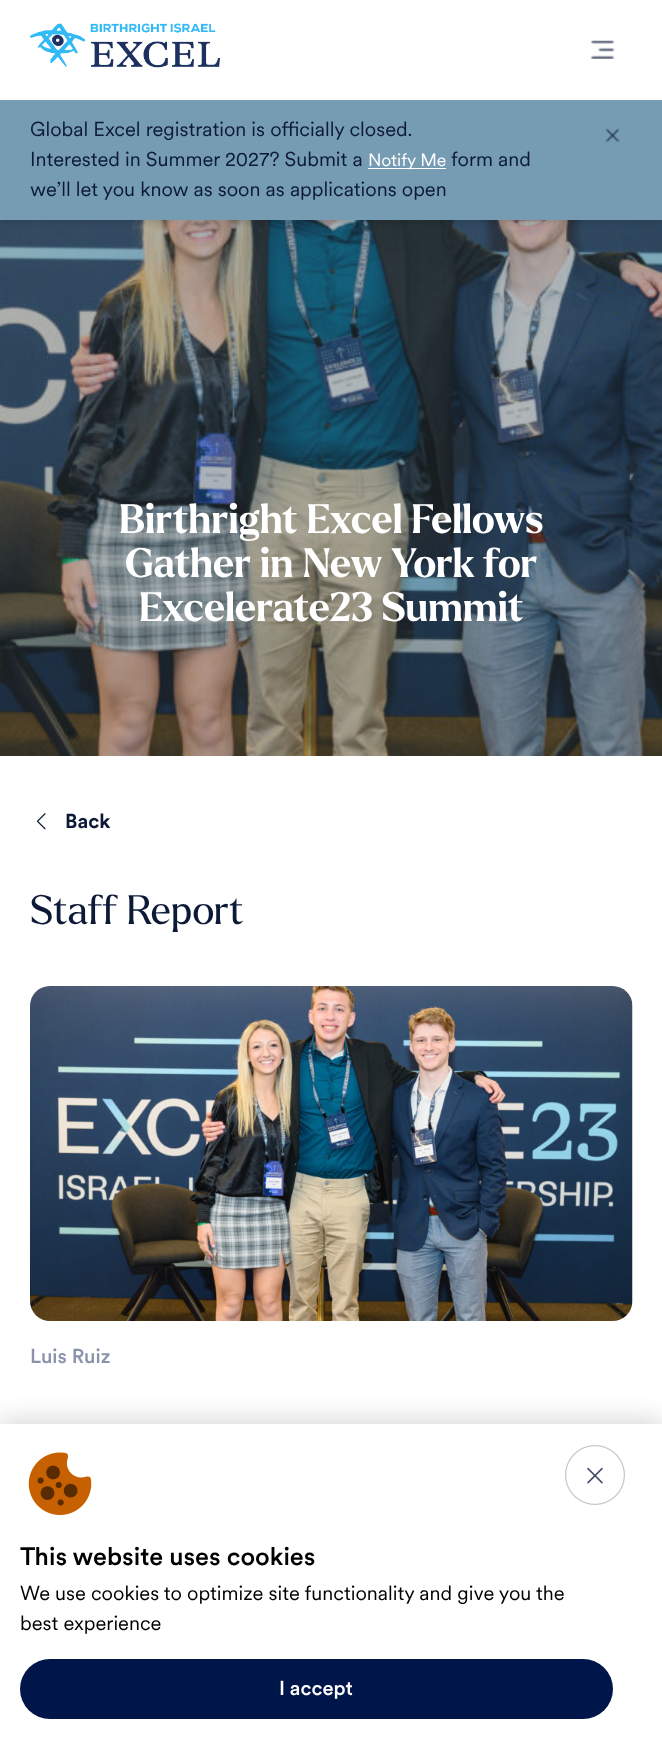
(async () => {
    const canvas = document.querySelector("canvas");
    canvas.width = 662;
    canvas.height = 1738;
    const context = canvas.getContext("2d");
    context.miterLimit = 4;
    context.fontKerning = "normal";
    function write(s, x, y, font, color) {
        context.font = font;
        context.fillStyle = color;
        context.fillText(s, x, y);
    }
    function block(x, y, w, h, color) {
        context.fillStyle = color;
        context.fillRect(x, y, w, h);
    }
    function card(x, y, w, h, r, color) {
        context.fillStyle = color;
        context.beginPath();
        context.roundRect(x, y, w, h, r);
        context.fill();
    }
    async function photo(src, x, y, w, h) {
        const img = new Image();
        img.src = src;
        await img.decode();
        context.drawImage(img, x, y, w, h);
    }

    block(0, 0, 662, 1738, "rgb(255, 255, 255)");
    await photo("media/1.png", 30, 23, 190, 45);
    await photo("media/2.png", 590, 40, 25, 19);
    await photo("media/4.png", 0, 220, 662, 536);
    context.fillStyle = "rgba(0, 0, 0, 0.1)";
    context.filter = "blur(2.5px)";
    context.beginPath();
    context.rect(0, 103, 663, 120);
    context.fill();
    context.filter = "none";
    block(0, 100, 662, 120, "rgb(117, 156, 178)");
    write("Global Excel registration is officially closed.", 30, 136, "20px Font", "rgb(12, 25, 55)");
    write("Interested in Summer 2027? Submit a", 30, 166, "20px Font", "rgb(12, 25, 55)");
    block(368, 168, 78, 1, "rgb(255, 255, 255)");
    write("Notify Me", 368, 166, "17.5px Font", "rgb(255, 255, 255)");
    write("form and", 451, 166, "20px Font", "rgb(12, 25, 55)");
    write("we’ll let you know as soon as applications open", 30, 196, "20px Font", "rgb(12, 25, 55)");
    await photo("media/3.png", 605, 128, 15, 14);
    write("Birthright Excel Fellows", 119, 533, "bold 40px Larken", "rgb(255, 255, 255)");
    write("Gather in New York for", 125, 577, "bold 40px Larken", "rgb(255, 255, 255)");
    write("Excelerate23 Summit", 139, 621, "bold 40px Larken", "rgb(255, 255, 255)");
    await photo("media/5.png", 36, 813, 10, 17);
    write("Back", 65, 828, "bold 20px Font", "rgb(12, 25, 55)");
    write("Staff Report", 30, 924, "40px Larken", "rgb(12, 25, 55)");
    await photo("media/6.png", 30, 986, 603, 335);
    write("Luis Ruiz", 30, 1363, "500 20px Font", "rgb(138, 147, 172)");
    context.fillStyle = "rgba(0, 0, 0, 0.15)";
    context.filter = "blur(12.5px)";
    context.beginPath();
    context.rect(0, 1419, 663, 315);
    context.fill();
    context.filter = "none";
    block(0, 1424, 662, 314, "rgb(255, 255, 255)");
    await photo("media/7.png", 565, 1445, 60, 60);
    await photo("media/8.png", 28, 1452, 64, 63);
    write("This website uses cookies", 20, 1565, "500 25px Font", "rgb(0, 0, 0)");
    write("We use cookies to optimize site functionality and give you the", 20, 1600, "20px Font", "rgb(0, 0, 0)");
    write("best experience", 20, 1630, "20px Font", "rgb(0, 0, 0)");
    card(20, 1659, 593, 60, 30, "rgb(0, 21, 74)");
    write("I accept", 279, 1695, "500 20px Font", "rgb(255, 255, 255)");
})();
